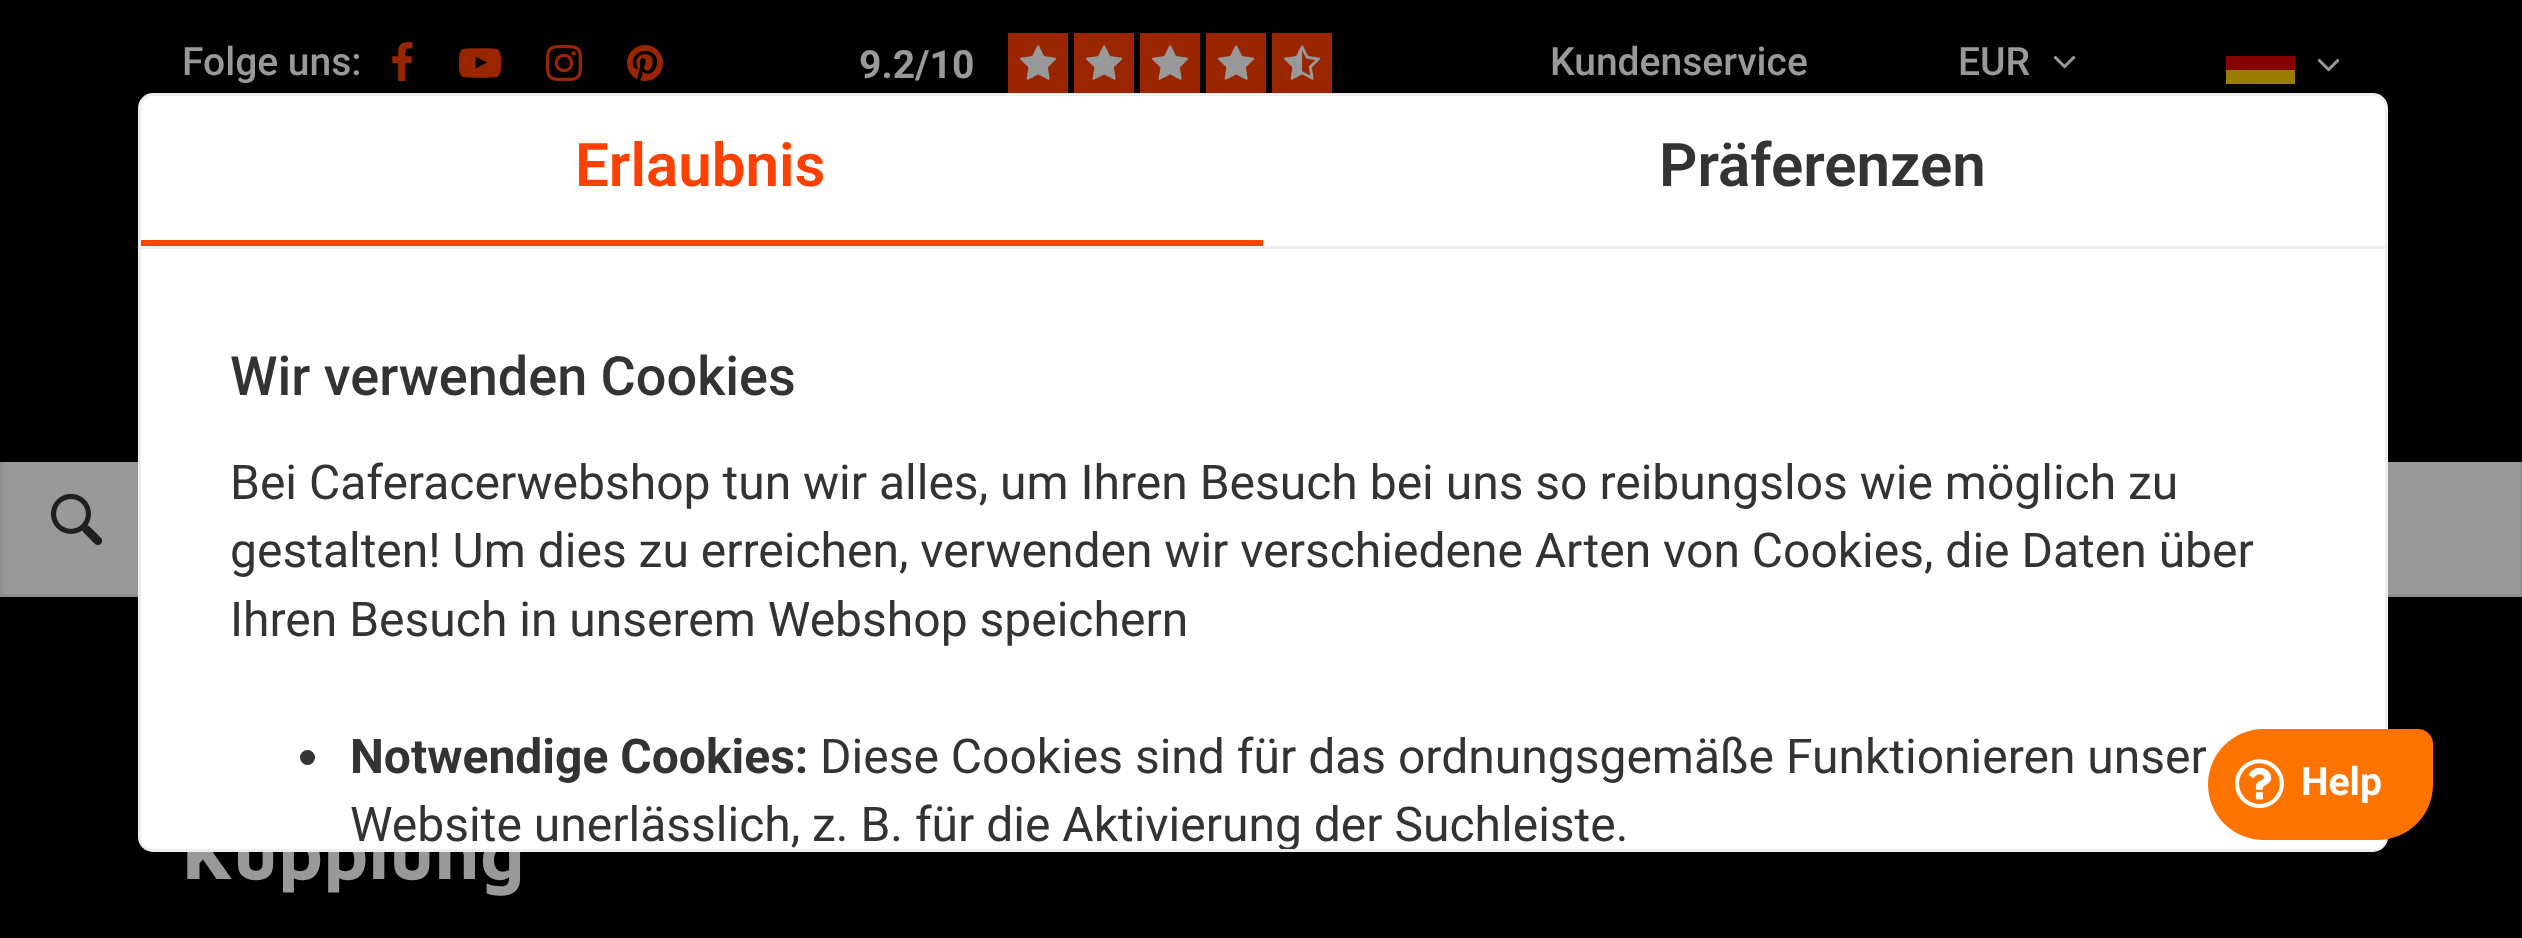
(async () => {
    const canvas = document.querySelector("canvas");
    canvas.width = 2522;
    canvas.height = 938;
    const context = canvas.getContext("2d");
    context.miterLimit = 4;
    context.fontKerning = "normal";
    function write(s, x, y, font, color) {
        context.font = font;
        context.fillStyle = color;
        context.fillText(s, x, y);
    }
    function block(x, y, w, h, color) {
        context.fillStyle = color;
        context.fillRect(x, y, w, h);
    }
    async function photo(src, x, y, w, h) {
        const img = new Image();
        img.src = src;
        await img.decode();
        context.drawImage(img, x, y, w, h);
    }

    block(0, 0, 2522, 938, "rgb(0, 0, 0)");
    write("Folge uns:", 182, 75, "500 39px Roboto", "rgb(153, 153, 153)");
    await photo("media/1.png", 392, 42, 21, 39);
    await photo("media/2.png", 459, 48, 42, 30);
    await photo("media/3.png", 546, 45, 36, 36);
    await photo("media/4.png", 627, 45, 36, 36);
    write("9.2/10", 859, 78, "bold 39px Roboto", "rgb(153, 153, 153)");
    block(1008, 33, 60, 60, "rgb(153, 38, 0)");
    await photo("media/5.png", 1020, 45, 37, 35);
    block(1074, 33, 60, 60, "rgb(153, 38, 0)");
    await photo("media/5.png", 1086, 45, 37, 35);
    block(1140, 33, 60, 60, "rgb(153, 38, 0)");
    await photo("media/5.png", 1152, 45, 37, 35);
    block(1206, 33, 60, 60, "rgb(153, 38, 0)");
    await photo("media/5.png", 1218, 45, 37, 35);
    block(1272, 33, 60, 60, "rgb(153, 38, 0)");
    await photo("media/6.png", 1284, 45, 37, 35);
    write("Kundenservice", 1550, 75, "500 39px Roboto", "rgb(153, 153, 153)");
    write("EUR", 1958, 75, "500 39px Roboto", "rgb(153, 153, 153)");
    await photo("media/7.png", 2053, 55, 23, 14);
    block(2226, 56, 69, 14, "rgb(133, 0, 0)");
    block(2226, 70, 69, 14, "rgb(153, 124, 0)");
    await photo("media/7.png", 2317, 58, 23, 14);
    block(3, 462, 2517, 132, "rgb(153, 153, 153)");
    block(2520, 462, 2, 135, "rgb(143, 143, 143)");
    block(0, 594, 2522, 3, "rgb(143, 143, 143)");
    block(0, 462, 3, 135, "rgb(143, 143, 143)");
    await photo("media/8.png", 51, 493, 52, 52);
    write("Kupplung", 182, 879, "bold 75px Maven Pro", "rgb(153, 153, 153)");
    context.fillStyle = "rgb(255, 255, 255)";
    context.beginPath();
    context.roundRect(139.5, 94.5, 2247, 756, 13.5);
    context.fill();
    context.strokeStyle = "rgb(238, 238, 238)";
    context.lineWidth = 3;
    context.stroke();
    block(141, 246, 2244, 3, "rgb(238, 238, 238)");
    block(141, 240, 1122, 6, "rgb(255, 64, 0)");
    write("Erlaubnis", 575, 186, "600 60px Roboto", "rgb(255, 64, 0)");
    write("Präferenzen", 1659, 186, "600 60px Roboto", "rgb(51, 51, 51)");
    write("Wir verwenden Cookies", 230, 395, "500 54px Roboto", "rgb(51, 51, 51)");
    write("Bei Caferacerwebshop tun wir alles, um Ihren Besuch bei uns so reibungslos wie möglich zu", 230, 499, "48px Roboto", "rgb(51, 51, 51)");
    write("gestalten! Um dies zu erreichen, verwenden wir verschiedene Arten von Cookies, die Daten über", 230, 567, "48px Roboto", "rgb(51, 51, 51)");
    write("Ihren Besuch in unserem Webshop speichern", 230, 636, "48px Roboto", "rgb(51, 51, 51)");
    context.beginPath();
    context.arc(307.5, 757.5, 7.5, 0, Math.PI * 2);
    context.fill();
    write("Notwendige Cookies:", 350, 773, "bold 48px Roboto", "rgb(51, 51, 51)");
    write("Diese Cookies sind für das ordnungsgemäße Funktionieren unser", 820, 773, "48px Roboto", "rgb(51, 51, 51)");
    context.save();
    context.beginPath();
    context.roundRect(141, 96, 2244, 753, 12);
    context.clip();
    write("Website unerlässlich, z. B. für die Aktivierung der Suchleiste.", 350, 841, "48px Roboto", "rgb(51, 51, 51)");
    context.restore();
    context.fillStyle = "rgb(255, 116, 0)";
    context.beginPath();
    context.roundRect(2208, 729, 225, 111, [55.5, 15, 55.5, 55.5]);
    context.fill();
    await photo("media/9.png", 2235, 759, 49, 50);
    write("Help", 2301, 795, "bold 39px Roboto", "rgb(255, 255, 255)");
})();
